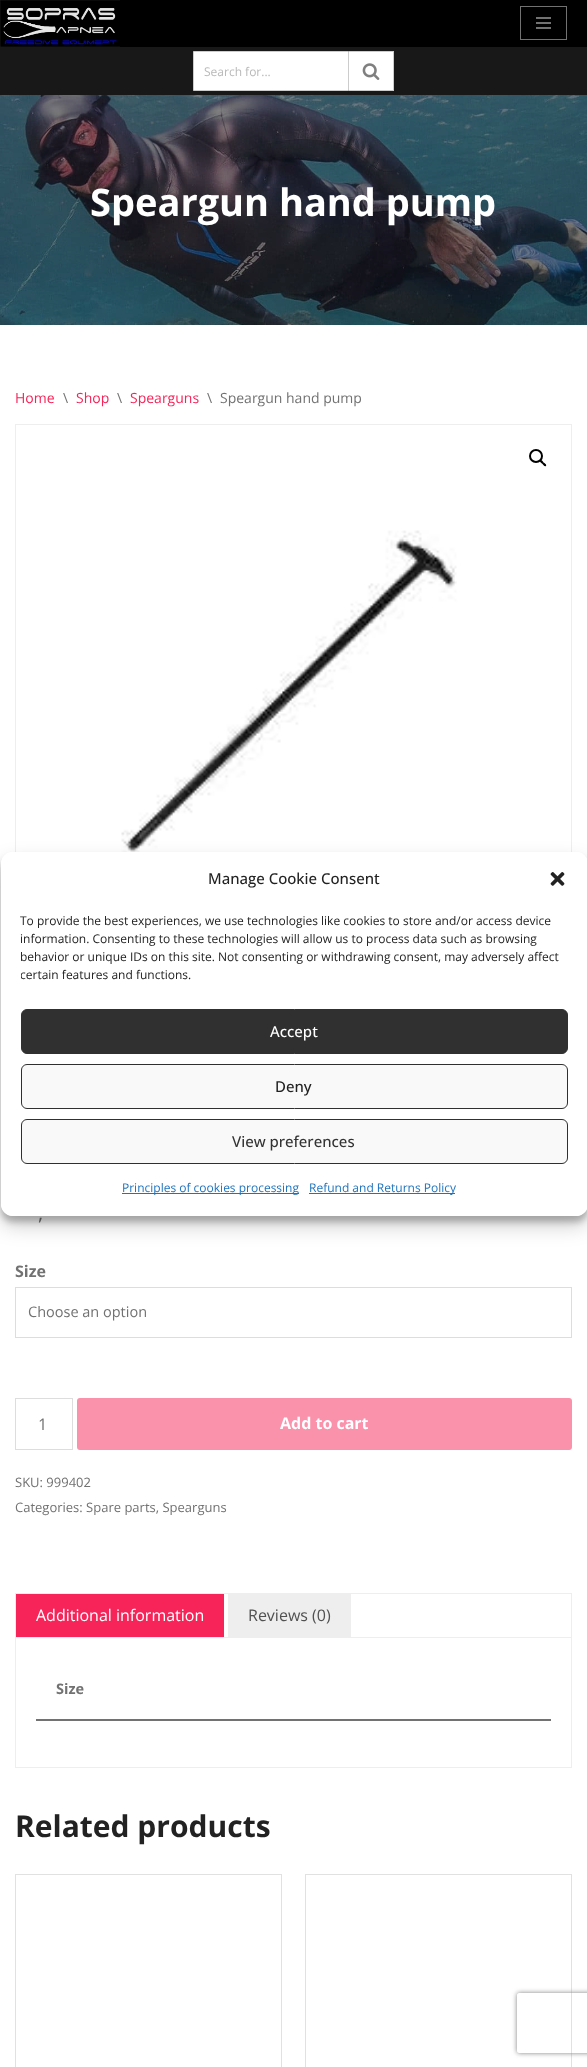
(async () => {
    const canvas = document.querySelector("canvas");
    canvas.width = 587;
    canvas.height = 2067;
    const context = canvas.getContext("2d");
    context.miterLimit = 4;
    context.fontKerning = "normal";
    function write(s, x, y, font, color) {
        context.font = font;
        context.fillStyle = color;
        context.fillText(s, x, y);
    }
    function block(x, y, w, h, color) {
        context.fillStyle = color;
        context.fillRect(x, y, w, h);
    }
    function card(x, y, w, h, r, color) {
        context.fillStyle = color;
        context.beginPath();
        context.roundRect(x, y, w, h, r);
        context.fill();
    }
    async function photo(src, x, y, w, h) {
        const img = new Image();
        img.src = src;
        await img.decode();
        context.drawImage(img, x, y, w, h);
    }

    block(0, 0, 587, 2067, "rgb(255, 255, 255)");
    block(0, 0, 587, 47, "rgb(0, 0, 0)");
    await photo("media/1.png", 0, 0, 120, 47);
    context.strokeStyle = "rgb(114, 114, 114)";
    context.strokeRect(520.5, 6.5, 46, 33);
    block(536, 17, 15, 2, "rgb(114, 114, 114)");
    block(536, 22, 15, 2, "rgb(114, 114, 114)");
    block(536, 27, 15, 2, "rgb(114, 114, 114)");
    block(0, 47, 587, 48, "rgb(24, 24, 24)");
    context.fillStyle = "rgb(255, 255, 255)";
    context.beginPath();
    context.rect(193.5, 51.5, 155, 39);
    context.fill();
    context.strokeStyle = "rgb(204, 204, 204)";
    context.stroke();
    write("Search for...", 204, 76, "12px Open Sans", "rgb(185, 185, 185)");
    block(349, 52, 44, 38, "rgb(255, 255, 255)");
    block(349, 51, 45, 1, "rgb(204, 204, 204)");
    block(393, 51, 1, 40, "rgb(204, 204, 204)");
    block(349, 90, 45, 1, "rgb(204, 204, 204)");
    await photo("media/2.png", 362, 63, 18, 17);
    await photo("media/3.png", 0, 95, 587, 230);
    write("Speargun hand pump", 90, 216, "bold 38px Open Sans", "rgb(255, 255, 255)");
    write("Home", 15, 403, "14px Open Sans", "rgb(246, 36, 89)");
    write("\\", 63, 403, "14px Open Sans", "rgb(114, 114, 114)");
    write("Shop", 76, 403, "14px Open Sans", "rgb(246, 36, 89)");
    write("\\", 117, 403, "14px Open Sans", "rgb(114, 114, 114)");
    write("Spearguns", 130, 403, "14px Open Sans", "rgb(246, 36, 89)");
    write("\\", 207, 403, "14px Open Sans", "rgb(114, 114, 114)");
    write("Speargun hand pump", 220, 403, "14px Open Sans", "rgb(114, 114, 114)");
    context.strokeStyle = "rgb(238, 238, 238)";
    context.strokeRect(15.5, 424.5, 556, 556);
    await photo("media/4.png", 121, 530, 336, 322);
    context.beginPath();
    context.arc(536, 456, 6, 0, Math.PI * 2);
    context.strokeStyle = "rgb(0, 0, 0)";
    context.lineWidth = 2;
    context.stroke();
    context.fillStyle = "rgb(0, 0, 0)";
    context.beginPath();
    context.moveTo(540, 460.5);
    context.bezierCurveTo(541.5, 459, 543, 462, 543.5, 462.5);
    context.bezierCurveTo(544.5, 463, 547, 464.5, 546, 466);
    context.bezierCurveTo(544.5, 467, 543, 464.5, 542.5, 464);
    context.bezierCurveTo(541.5, 463, 539, 461.5, 540, 460.5);
    context.closePath();
    context.fill();
    write(",", 38, 1220, "20px Open Sans", "rgb(114, 114, 114)");
    write("Size", 15, 1277, "bold 16px Open Sans", "rgb(114, 114, 114)");
    context.strokeStyle = "rgb(221, 221, 221)";
    context.lineWidth = 1;
    context.strokeRect(15.5, 1287.5, 556, 50);
    write("Choose an option", 28, 1317, "14.5px Open Sans", "rgb(114, 114, 114)");
    context.strokeRect(15.5, 1398.5, 57, 51);
    write("1", 38, 1430, "16px Open Sans", "rgb(114, 114, 114)");
    card(77, 1398, 495, 52, 3, "rgb(251, 146, 172)");
    write("Add to cart", 280, 1429, "bold 16px Open Sans", "rgb(255, 255, 255)");
    write("SKU: 999402", 15, 1487, "13px Open Sans", "rgb(114, 114, 114)");
    write("Categories: Spare parts, Spearguns", 15, 1512, "13px Open Sans", "rgb(114, 114, 114)");
    context.strokeStyle = "rgb(238, 238, 238)";
    context.strokeRect(15.5, 1593.5, 556, 174);
    block(16, 1637, 555, 1, "rgb(238, 238, 238)");
    block(16, 1594, 208, 43, "rgb(246, 36, 89)");
    write("Additional information", 36, 1621, "16px Open Sans", "rgb(255, 255, 255)");
    block(228, 1594, 123, 43, "rgb(238, 238, 238)");
    write("Reviews (0)", 248, 1621, "16px Open Sans", "rgb(81, 81, 81)");
    block(36, 1719, 515, 2, "rgb(114, 114, 114)");
    write("Size", 56, 1694, "bold 14.5px Open Sans", "rgb(114, 114, 114)");
    write("Related products", 15, 1837, "bold 30px Open Sans", "rgb(34, 34, 34)");
    context.strokeStyle = "rgb(225, 225, 225)";
    context.strokeRect(15.5, 1874.5, 266, 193);
    context.strokeRect(305.5, 1874.5, 266, 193);
    context.save();
    context.beginPath();
    context.moveTo(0, 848);
    context.lineTo(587, 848);
    context.lineTo(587, 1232);
    context.lineTo(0, 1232);
    context.closePath();
    context.moveTo(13, 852);
    context.lineTo(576, 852);
    context.bezierCurveTo(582.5, 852, 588, 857.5, 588, 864);
    context.lineTo(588, 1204);
    context.bezierCurveTo(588, 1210.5, 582.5, 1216, 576, 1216);
    context.lineTo(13, 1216);
    context.bezierCurveTo(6.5, 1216, 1, 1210.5, 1, 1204);
    context.lineTo(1, 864);
    context.bezierCurveTo(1, 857.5, 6.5, 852, 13, 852);
    context.closePath();
    context.clip("evenodd");
    context.fillStyle = "rgba(0, 0, 0, 0.23)";
    context.filter = "blur(3px)";
    context.beginPath();
    context.roundRect(1, 858, 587, 364, 12);
    context.fill();
    context.filter = "none";
    context.restore();
    context.save();
    context.beginPath();
    context.moveTo(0, 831);
    context.lineTo(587, 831);
    context.lineTo(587, 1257);
    context.lineTo(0, 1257);
    context.closePath();
    context.moveTo(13, 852);
    context.lineTo(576, 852);
    context.bezierCurveTo(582.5, 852, 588, 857.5, 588, 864);
    context.lineTo(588, 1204);
    context.bezierCurveTo(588, 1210.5, 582.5, 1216, 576, 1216);
    context.lineTo(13, 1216);
    context.bezierCurveTo(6.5, 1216, 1, 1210.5, 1, 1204);
    context.lineTo(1, 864);
    context.bezierCurveTo(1, 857.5, 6.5, 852, 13, 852);
    context.closePath();
    context.clip("evenodd");
    context.fillStyle = "rgba(0, 0, 0, 0.19)";
    context.filter = "blur(10px)";
    context.beginPath();
    context.roundRect(1, 862, 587, 364, 12);
    context.fill();
    context.filter = "none";
    context.restore();
    card(1, 852, 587, 364, 12, "rgb(255, 255, 255)");
    write("Manage Cookie Consent", 208, 884, "500 15px Open Sans", "rgb(34, 34, 34)");
    await photo("media/5.png", 550, 872, 15, 14);
    write("To provide the best experiences, we use technologies like cookies to store and/or access device", 20, 925, "12px Open Sans", "rgb(34, 34, 34)");
    write("information. Consenting to these technologies will allow us to process data such as browsing", 20, 943, "12px Open Sans", "rgb(34, 34, 34)");
    write("behavior or unique IDs on this site. Not consenting or withdrawing consent, may adversely affect", 20, 961, "12px Open Sans", "rgb(34, 34, 34)");
    context.save();
    context.beginPath();
    context.rect(21, 912, 547, 77);
    context.clip();
    write("certain features and functions.", 20, 979, "12px Open Sans", "rgb(34, 34, 34)");
    context.restore();
    context.fillStyle = "rgb(48, 48, 48)";
    context.beginPath();
    context.roundRect(21.5, 1009.5, 546, 44, 5.5);
    context.fill();
    context.strokeStyle = "rgb(48, 48, 48)";
    context.stroke();
    write("Accept", 270, 1037, "500 15px Open Sans", "rgb(255, 255, 255)");
    context.fillStyle = "rgb(249, 249, 249)";
    context.beginPath();
    context.roundRect(21.5, 1064.5, 546, 44, 5.5);
    context.fill();
    context.stroke();
    write("Deny", 275, 1092, "500 15px Open Sans", "rgb(34, 34, 34)");
    context.fillStyle = "rgb(249, 249, 249)";
    context.beginPath();
    context.roundRect(21.5, 1119.5, 546, 44, 5.5);
    context.fill();
    context.stroke();
    write("View preferences", 232, 1147, "500 15px Open Sans", "rgb(51, 51, 51)");
    block(122, 1193, 177, 1, "rgb(30, 115, 190)");
    write("Principles of cookies processing", 122, 1192, "12px Open Sans", "rgb(30, 115, 190)");
    block(309, 1193, 146, 1, "rgb(30, 115, 190)");
    write("Refund and Returns Policy", 309, 1192, "12px Open Sans", "rgb(30, 115, 190)");
    context.save();
    context.beginPath();
    context.moveTo(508, 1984);
    context.lineTo(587, 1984);
    context.lineTo(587, 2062);
    context.lineTo(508, 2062);
    context.closePath();
    context.moveTo(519, 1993);
    context.lineTo(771, 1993);
    context.bezierCurveTo(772, 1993, 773, 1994, 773, 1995);
    context.lineTo(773, 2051);
    context.bezierCurveTo(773, 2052, 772, 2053, 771, 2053);
    context.lineTo(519, 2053);
    context.bezierCurveTo(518, 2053, 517, 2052, 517, 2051);
    context.lineTo(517, 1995);
    context.bezierCurveTo(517, 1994, 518, 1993, 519, 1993);
    context.closePath();
    context.clip("evenodd");
    context.fillStyle = "rgb(128, 128, 128)";
    context.filter = "blur(2.5px)";
    context.beginPath();
    context.roundRect(517, 1993, 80, 60, 2);
    context.fill();
    context.filter = "none";
    context.restore();
})();
